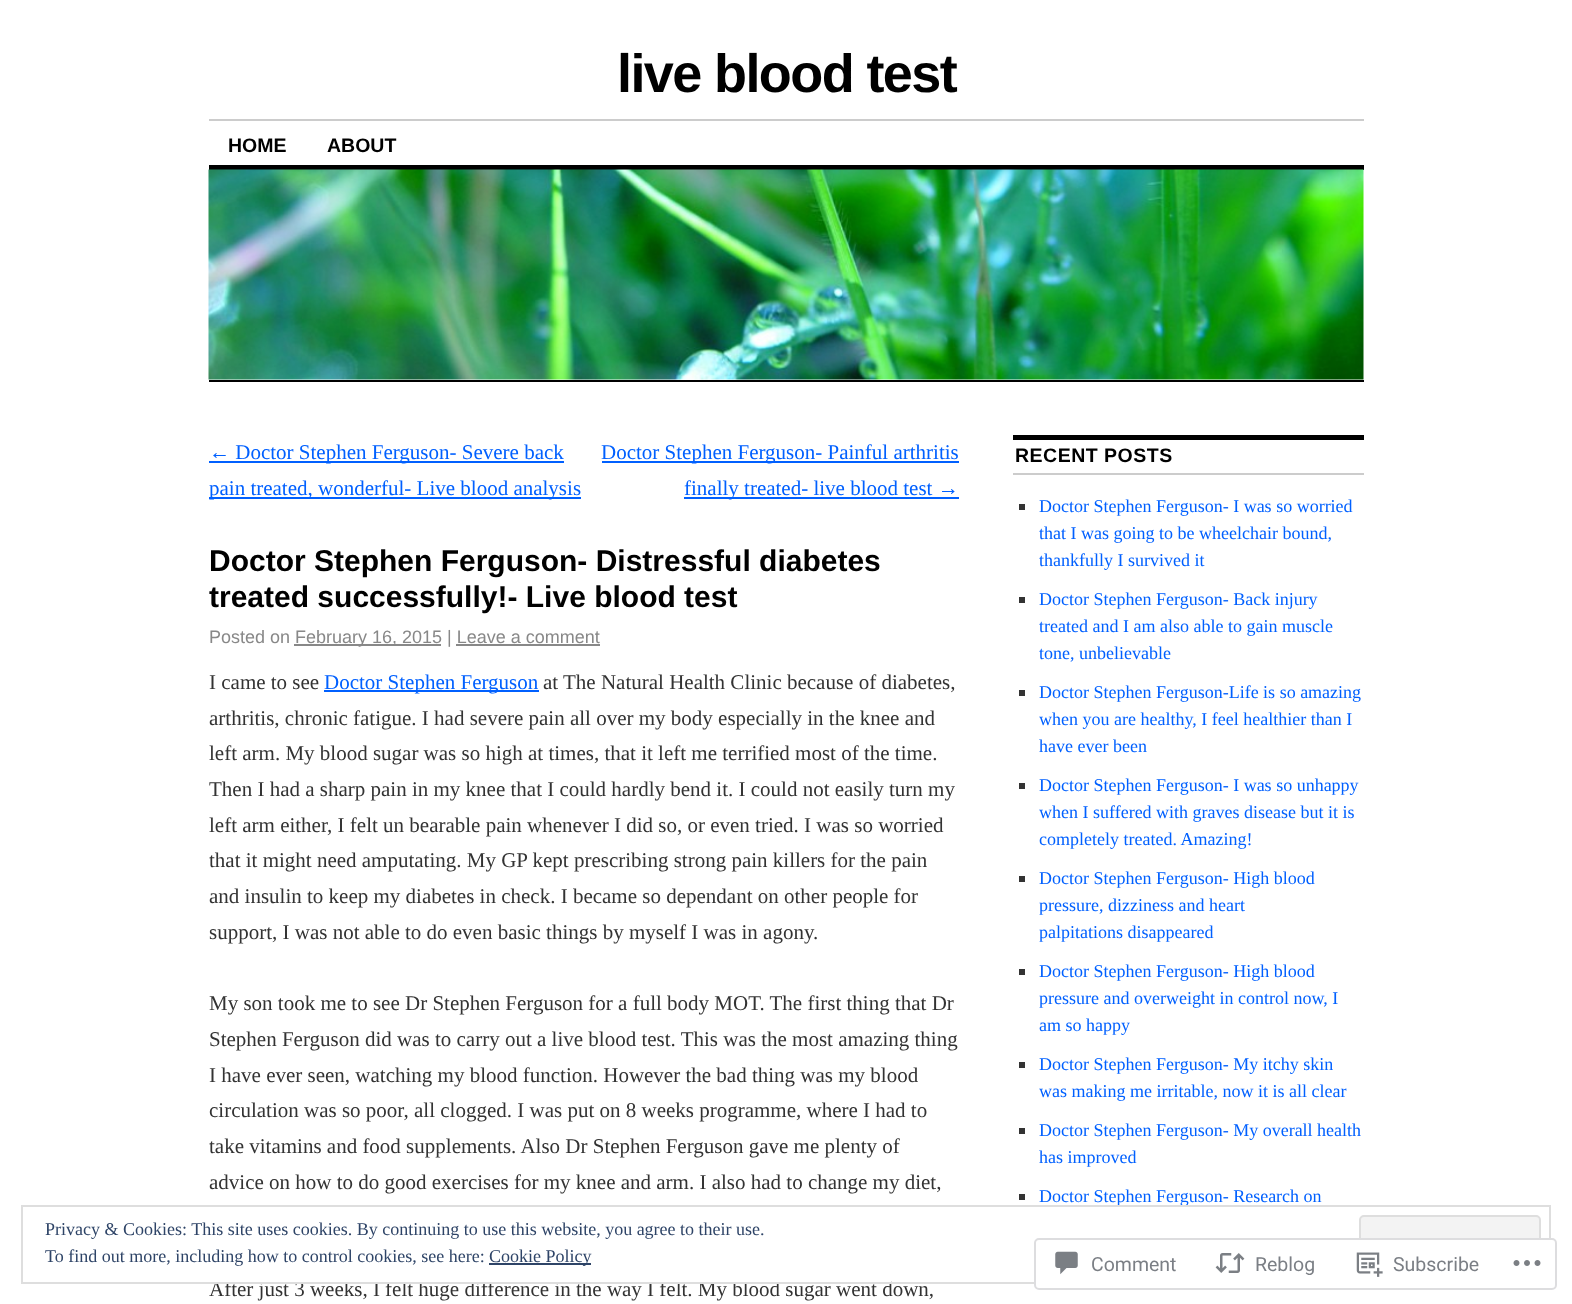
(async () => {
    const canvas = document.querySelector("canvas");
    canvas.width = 1572;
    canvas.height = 1304;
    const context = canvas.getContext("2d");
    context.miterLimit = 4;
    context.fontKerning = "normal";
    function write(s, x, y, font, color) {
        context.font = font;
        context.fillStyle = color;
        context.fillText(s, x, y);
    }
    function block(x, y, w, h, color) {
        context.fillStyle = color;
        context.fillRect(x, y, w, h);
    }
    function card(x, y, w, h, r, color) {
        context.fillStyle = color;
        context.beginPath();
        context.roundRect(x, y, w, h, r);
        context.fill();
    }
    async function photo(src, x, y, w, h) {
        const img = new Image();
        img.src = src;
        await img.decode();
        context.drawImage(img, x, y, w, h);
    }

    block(0, 0, 1572, 1304, "rgb(255, 255, 255)");
    context.letterSpacing = "-1.6px";
    write("live blood test", 617, 92, "bold 54px Liberation Sans", "rgb(0, 0, 0)");
    block(209, 119, 1155, 2, "rgb(204, 204, 204)");
    context.letterSpacing = "0px";
    write("HOME", 228, 152, "bold 19.5px Liberation Sans", "rgb(0, 0, 0)");
    write("ABOUT", 327, 152, "bold 19.5px Liberation Sans", "rgb(0, 0, 0)");
    block(209, 165, 1155, 5, "rgb(0, 0, 0)");
    await photo("media/1.png", 208, 169, 1156, 211);
    block(209, 380, 1155, 2, "rgb(0, 0, 0)");
    block(209, 461, 355, 2, "rgb(0, 96, 255)");
    write("← Doctor Stephen Ferguson- Severe back", 209, 459, "21px Liberation Serif", "rgb(0, 96, 255)");
    block(209, 497, 372, 2, "rgb(0, 96, 255)");
    write("pain treated, wonderful- Live blood analysis", 209, 495, "21px Liberation Serif", "rgb(0, 96, 255)");
    block(602, 461, 357, 2, "rgb(0, 96, 255)");
    write("Doctor Stephen Ferguson- Painful arthritis", 601, 459, "21px Liberation Serif", "rgb(0, 96, 255)");
    block(684, 497, 275, 2, "rgb(0, 96, 255)");
    write("finally treated- live blood test →", 684, 495, "21px Liberation Serif", "rgb(0, 96, 255)");
    write("Doctor Stephen Ferguson- Distressful diabetes", 209, 571, "bold 30px Liberation Sans", "rgb(0, 0, 0)");
    write("treated successfully!- Live blood test", 209, 607, "bold 30px Liberation Sans", "rgb(0, 0, 0)");
    write("Posted on", 209, 643, "18px Liberation Sans", "rgb(136, 136, 136)");
    block(294, 644, 147, 2, "rgb(136, 136, 136)");
    write("February 16, 2015 | Leave a comment", 295, 643, "18px Liberation Sans", "rgb(136, 136, 136)");
    block(456, 644, 144, 2, "rgb(136, 136, 136)");
    write("I came to see", 209, 689, "21px Liberation Serif", "rgb(51, 51, 51)");
    block(324, 690, 215, 2, "rgb(0, 96, 255)");
    write("Doctor Stephen Ferguson", 324, 689, "21px Liberation Serif", "rgb(0, 96, 255)");
    write("at The Natural Health Clinic because of diabetes,", 543, 689, "21px Liberation Serif", "rgb(51, 51, 51)");
    write("arthritis, chronic fatigue. I had severe pain all over my body especially in the knee and", 209, 725, "21px Liberation Serif", "rgb(51, 51, 51)");
    write("left arm. My blood sugar was so high at times, that it left me terrified most of the time.", 209, 760, "21px Liberation Serif", "rgb(51, 51, 51)");
    write("Then I had a sharp pain in my knee that I could hardly bend it. I could not easily turn my", 209, 796, "21px Liberation Serif", "rgb(51, 51, 51)");
    write("left arm either, I felt un bearable pain whenever I did so, or even tried. I was so worried", 209, 832, "21px Liberation Serif", "rgb(51, 51, 51)");
    write("that it might need amputating. My GP kept prescribing strong pain killers for the pain", 209, 867, "21px Liberation Serif", "rgb(51, 51, 51)");
    write("and insulin to keep my diabetes in check. I became so dependant on other people for", 209, 903, "21px Liberation Serif", "rgb(51, 51, 51)");
    write("support, I was not able to do even basic things by myself I was in agony.", 209, 939, "21px Liberation Serif", "rgb(51, 51, 51)");
    write("My son took me to see Dr Stephen Ferguson for a full body MOT. The first thing that Dr", 209, 1010, "21px Liberation Serif", "rgb(51, 51, 51)");
    write("Stephen Ferguson did was to carry out a live blood test. This was the most amazing thing", 209, 1046, "21px Liberation Serif", "rgb(51, 51, 51)");
    write("I have ever seen, watching my blood function. However the bad thing was my blood", 209, 1082, "21px Liberation Serif", "rgb(51, 51, 51)");
    write("circulation was so poor, all clogged. I was put on 8 weeks programme, where I had to", 209, 1117, "21px Liberation Serif", "rgb(51, 51, 51)");
    write("take vitamins and food supplements. Also Dr Stephen Ferguson gave me plenty of", 209, 1153, "21px Liberation Serif", "rgb(51, 51, 51)");
    write("advice on how to do good exercises for my knee and arm. I also had to change my diet,", 209, 1189, "21px Liberation Serif", "rgb(51, 51, 51)");
    write("After just 3 weeks, I felt huge difference in the way I felt. My blood sugar went down,", 209, 1296, "21px Liberation Serif", "rgb(51, 51, 51)");
    block(1013, 435, 351, 5, "rgb(0, 0, 0)");
    block(1013, 473, 351, 2, "rgb(204, 204, 204)");
    context.letterSpacing = "0.5px";
    write("RECENT POSTS", 1015, 462, "bold 19.5px Liberation Sans", "rgb(0, 0, 0)");
    block(1019, 504, 6, 6, "rgb(51, 51, 51)");
    context.letterSpacing = "0px";
    write("Doctor Stephen Ferguson- I was so worried", 1039, 512, "18px Liberation Serif", "rgb(0, 96, 255)");
    write("that I was going to be wheelchair bound,", 1039, 539, "18px Liberation Serif", "rgb(0, 96, 255)");
    write("thankfully I survived it", 1039, 566, "18px Liberation Serif", "rgb(0, 96, 255)");
    block(1019, 597, 6, 6, "rgb(51, 51, 51)");
    write("Doctor Stephen Ferguson- Back injury", 1039, 605, "18px Liberation Serif", "rgb(0, 96, 255)");
    write("treated and I am also able to gain muscle", 1039, 632, "18px Liberation Serif", "rgb(0, 96, 255)");
    write("tone, unbelievable", 1039, 659, "18px Liberation Serif", "rgb(0, 96, 255)");
    block(1019, 690, 6, 6, "rgb(51, 51, 51)");
    write("Doctor Stephen Ferguson-Life is so amazing", 1039, 698, "18px Liberation Serif", "rgb(0, 96, 255)");
    write("when you are healthy, I feel healthier than I", 1039, 725, "18px Liberation Serif", "rgb(0, 96, 255)");
    write("have ever been", 1039, 752, "18px Liberation Serif", "rgb(0, 96, 255)");
    block(1019, 783, 6, 6, "rgb(51, 51, 51)");
    write("Doctor Stephen Ferguson- I was so unhappy", 1039, 791, "18px Liberation Serif", "rgb(0, 96, 255)");
    write("when I suffered with graves disease but it is", 1039, 818, "18px Liberation Serif", "rgb(0, 96, 255)");
    write("completely treated. Amazing!", 1039, 845, "18px Liberation Serif", "rgb(0, 96, 255)");
    block(1019, 876, 6, 6, "rgb(51, 51, 51)");
    write("Doctor Stephen Ferguson- High blood", 1039, 884, "18px Liberation Serif", "rgb(0, 96, 255)");
    write("pressure, dizziness and heart", 1039, 911, "18px Liberation Serif", "rgb(0, 96, 255)");
    write("palpitations disappeared", 1039, 938, "18px Liberation Serif", "rgb(0, 96, 255)");
    block(1019, 969, 6, 6, "rgb(51, 51, 51)");
    write("Doctor Stephen Ferguson- High blood", 1039, 977, "18px Liberation Serif", "rgb(0, 96, 255)");
    write("pressure and overweight in control now, I", 1039, 1004, "18px Liberation Serif", "rgb(0, 96, 255)");
    write("am so happy", 1039, 1031, "18px Liberation Serif", "rgb(0, 96, 255)");
    block(1019, 1062, 6, 6, "rgb(51, 51, 51)");
    write("Doctor Stephen Ferguson- My itchy skin", 1039, 1070, "18px Liberation Serif", "rgb(0, 96, 255)");
    write("was making me irritable, now it is all clear", 1039, 1097, "18px Liberation Serif", "rgb(0, 96, 255)");
    block(1019, 1128, 6, 6, "rgb(51, 51, 51)");
    write("Doctor Stephen Ferguson- My overall health", 1039, 1136, "18px Liberation Serif", "rgb(0, 96, 255)");
    write("has improved", 1039, 1163, "18px Liberation Serif", "rgb(0, 96, 255)");
    block(1019, 1194, 6, 6, "rgb(51, 51, 51)");
    write("Doctor Stephen Ferguson- Research on", 1039, 1202, "18px Liberation Serif", "rgb(0, 96, 255)");
    block(227, 1281, 664, 1, "rgb(255, 255, 255)");
    context.strokeStyle = "rgb(222, 222, 222)";
    context.lineWidth = 2;
    context.strokeRect(22, 1206, 1528, 77);
    write("Privacy & Cookies: This site uses cookies. By continuing to use this website, you agree to their use.", 45, 1235, "18px Liberation Serif", "rgb(46, 68, 103)");
    context.fillStyle = "rgb(243, 243, 243)";
    context.beginPath();
    context.roundRect(1360, 1216, 180, 57, 4);
    context.fill();
    context.stroke();
    write("To find out more, including how to control cookies, see here:", 45, 1262, "18px Liberation Serif", "rgb(46, 68, 103)");
    block(489, 1263, 102, 2, "rgb(46, 68, 103)");
    write("Cookie Policy", 489, 1262, "18px Liberation Serif", "rgb(46, 68, 103)");
    card(1034, 1238, 523, 52, 5, "rgba(255, 255, 255, 0.98)");
    context.beginPath();
    context.roundRect(1035, 1239, 521, 50, 4);
    context.strokeStyle = "rgba(220, 220, 222, 0.98)";
    context.stroke();
    await photo("media/2.png", 1055, 1251, 23, 24);
    write("Comment", 1091, 1271, "19.5px Roboto", "rgb(123, 127, 133)");
    await photo("media/3.png", 1215, 1253, 30, 20);
    write("Reblog", 1255, 1271, "19.5px Roboto", "rgb(123, 127, 133)");
    await photo("media/4.png", 1356, 1252, 27, 25);
    write("Subscribe", 1393, 1271, "19.5px Roboto", "rgb(123, 127, 133)");
    await photo("media/5.png", 1513, 1260, 28, 6);
})();
